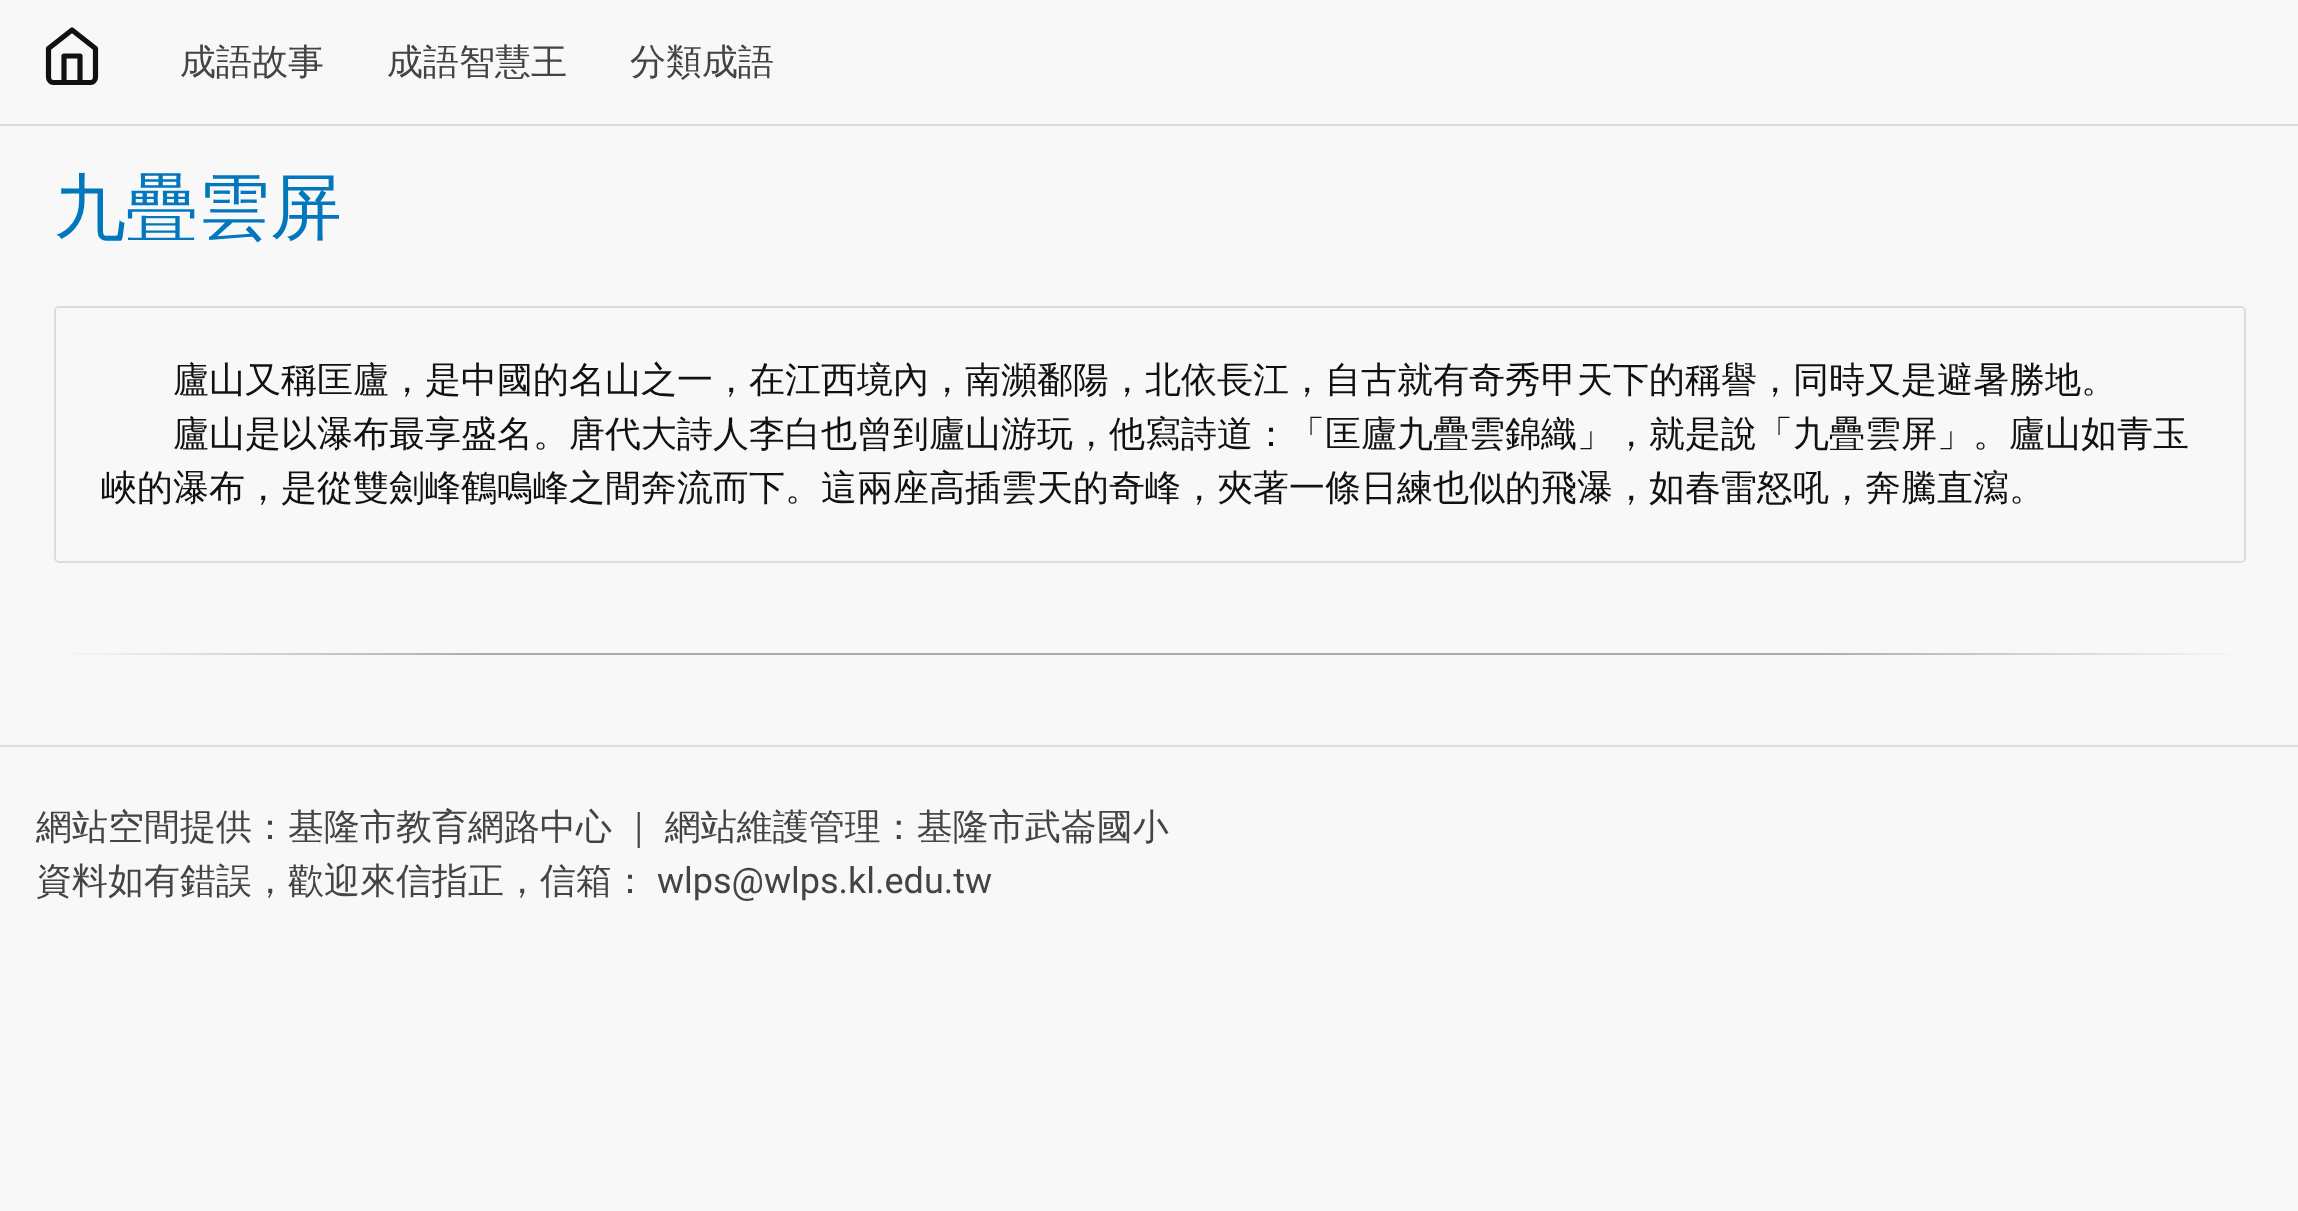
(async () => {
    const canvas = document.querySelector("canvas");
    canvas.width = 2298;
    canvas.height = 1211;
    const context = canvas.getContext("2d");
    context.miterLimit = 4;
    context.fontKerning = "normal";
    function write(s, x, y, font, color) {
        context.font = font;
        context.fillStyle = color;
        context.fillText(s, x, y);
    }
    function block(x, y, w, h, color) {
        context.fillStyle = color;
        context.fillRect(x, y, w, h);
    }
    function card(x, y, w, h, r, color) {
        context.fillStyle = color;
        context.beginPath();
        context.roundRect(x, y, w, h, r);
        context.fill();
    }
    let gradient;

    block(0, 0, 2298, 1211, "rgb(248, 248, 248)");
    block(0, 124, 2298, 2, "rgb(221, 221, 221)");
    context.beginPath();
    context.moveTo(48.5, 48.5);
    context.lineTo(72, 30);
    context.lineTo(95.5, 48.5);
    context.lineTo(95.5, 77);
    context.bezierCurveTo(95.5, 80, 93.5, 82.5, 90.5, 82.5);
    context.lineTo(53.5, 82.5);
    context.bezierCurveTo(50.5, 82.5, 48.5, 80, 48.5, 77);
    context.closePath();
    context.moveTo(64, 82.5);
    context.lineTo(64, 56);
    context.lineTo(80, 56);
    context.lineTo(80, 82.5);
    context.strokeStyle = "rgb(17, 17, 17)";
    context.lineWidth = 5.2;
    context.lineCap = "round";
    context.lineJoin = "round";
    context.stroke();
    write("成語故事", 180, 74, "500 36px WenQuanYi Zen Hei", "rgb(68, 68, 68)");
    write("成語智慧王", 387, 74, "500 36px WenQuanYi Zen Hei", "rgb(68, 68, 68)");
    write("分類成語", 630, 74, "500 36px WenQuanYi Zen Hei", "rgb(68, 68, 68)");
    write("九疊雲屏", 54, 232, "500 72px WenQuanYi Zen Hei", "rgb(2, 119, 189)");
    context.beginPath();
    context.roundRect(55, 307, 2190, 255, 4);
    context.strokeStyle = "rgb(221, 221, 221)";
    context.lineWidth = 2;
    context.lineJoin = "miter";
    context.stroke();
    card(56, 308, 2187, 252, 2, "rgb(248, 248, 248)");
    write("廬山又稱匡廬，是中國的名山之一，在江西境內，南瀕鄱陽，北依長江，自古就有奇秀甲天下的稱譽，同時又是避暑勝地。", 173, 392, "500 36px WenQuanYi Zen Hei", "rgb(17, 17, 17)");
    write("廬山是以瀑布最享盛名。唐代大詩人李白也曾到廬山游玩，他寫詩道：「匡廬九疊雲錦織」，就是說「九疊雲屏」。廬山如青玉", 173, 446, "500 36px WenQuanYi Zen Hei", "rgb(17, 17, 17)");
    write("峽的瀑布，是從雙劍峰鶴鳴峰之間奔流而下。這兩座高插雲天的奇峰，夾著一條日練也似的飛瀑，如春雷怒吼，奔騰直瀉。", 101, 500, "500 36px WenQuanYi Zen Hei", "rgb(17, 17, 17)");
    gradient = context.createLinearGradient(54, 654, 2246, 654);
    gradient.addColorStop(0, "rgb(248, 248, 248)");
    gradient.addColorStop(0.2, "rgb(170, 170, 170)");
    gradient.addColorStop(0.8, "rgb(170, 170, 170)");
    gradient.addColorStop(1, "rgb(248, 248, 248)");
    context.fillStyle = gradient;
    context.fillRect(68, 653, 2164, 2);
    block(0, 745, 2298, 2, "rgb(221, 221, 221)");
    context.wordSpacing = "-2px";
    write("網站空間提供：基隆市教育網路中心 ｜ 網站維護管理：基隆市武崙國小", 36, 839, "500 36px WenQuanYi Zen Hei", "rgb(68, 68, 68)");
    context.wordSpacing = "0px";
    write("資料如有錯誤，歡迎來信指正，信箱：", 36, 893, "500 36px WenQuanYi Zen Hei", "rgb(68, 68, 68)");
    write("wlps@wlps.kl.edu.tw", 657, 893, "36px Roboto", "rgb(68, 68, 68)");
})();
